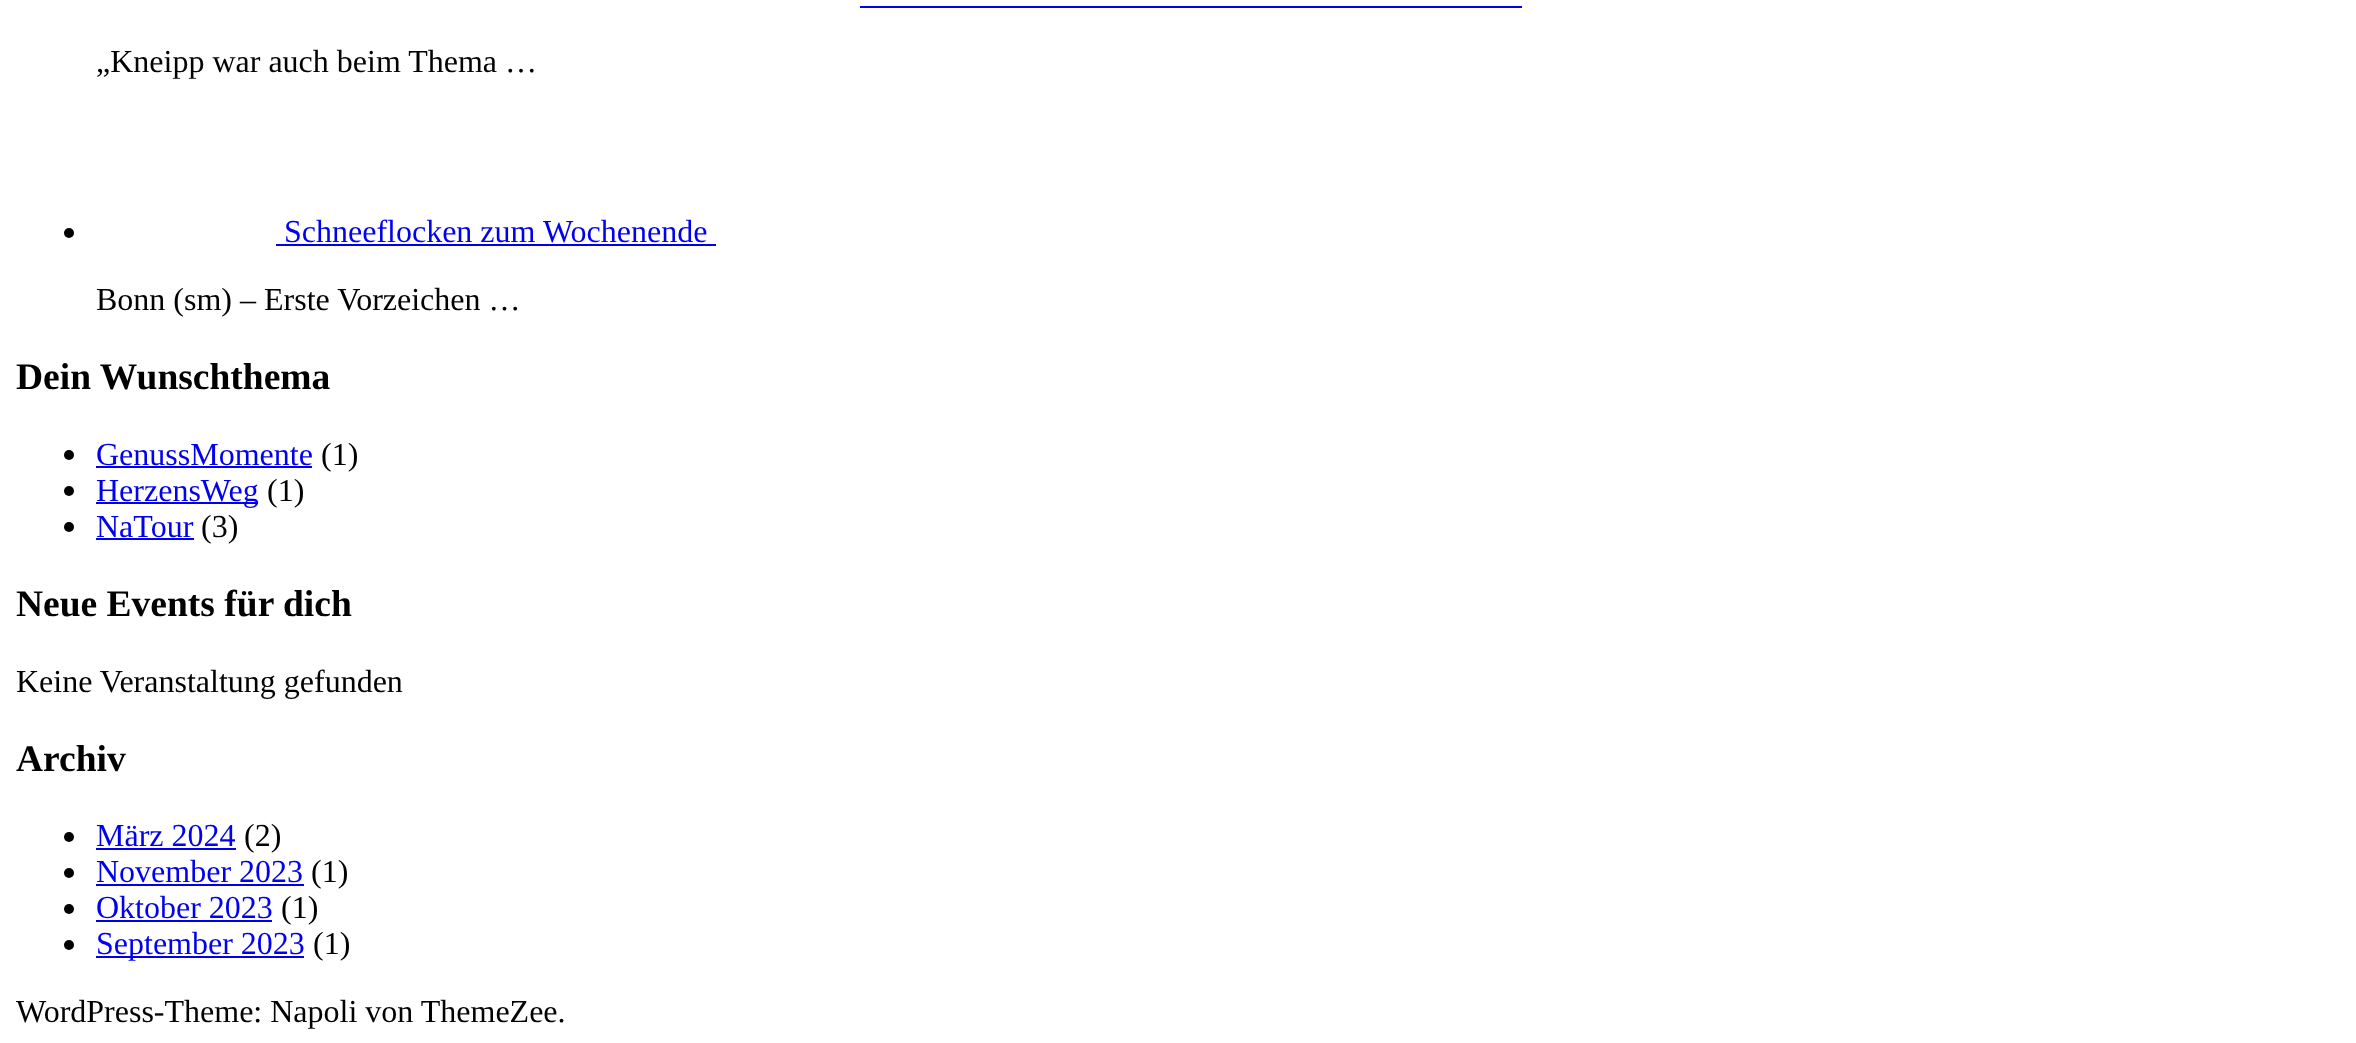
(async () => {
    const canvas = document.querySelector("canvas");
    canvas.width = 2356;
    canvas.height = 1043;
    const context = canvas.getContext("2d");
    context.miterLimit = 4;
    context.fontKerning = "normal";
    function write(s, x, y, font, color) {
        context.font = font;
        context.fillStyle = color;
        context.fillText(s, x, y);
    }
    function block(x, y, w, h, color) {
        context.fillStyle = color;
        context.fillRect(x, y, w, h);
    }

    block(0, 0, 2356, 1043, "rgb(255, 255, 255)");
    block(860, 6, 662, 2, "rgb(0, 0, 238)");
    write("„Kneipp war auch beim Thema …", 96, 72, "32px Liberation Serif", "rgb(0, 0, 0)");
    context.beginPath();
    context.arc(69, 233, 5, 0, Math.PI * 2);
    context.fill();
    write("Schneeflocken zum Wochenende", 284, 242, "32px Liberation Serif", "rgb(0, 0, 238)");
    block(276, 244, 440, 2, "rgb(0, 0, 238)");
    write("Bonn (sm) – Erste Vorzeichen …", 96, 310, "32px Liberation Serif", "rgb(0, 0, 0)");
    write("Dein Wunschthema", 16, 389, "bold 37.5px Liberation Serif", "rgb(0, 0, 0)");
    context.beginPath();
    context.arc(69, 455, 5, 0, Math.PI * 2);
    context.fill();
    write("GenussMomente", 96, 465, "32px Liberation Serif", "rgb(0, 0, 238)");
    block(96, 466, 216, 2, "rgb(0, 0, 238)");
    write("(1)", 321, 465, "32px Liberation Serif", "rgb(0, 0, 0)");
    context.beginPath();
    context.arc(69, 491, 5, 0, Math.PI * 2);
    context.fill();
    block(96, 502, 162, 2, "rgb(0, 0, 238)");
    write("HerzensWeg", 96, 501, "32px Liberation Serif", "rgb(0, 0, 238)");
    write("(1)", 267, 501, "32px Liberation Serif", "rgb(0, 0, 0)");
    context.beginPath();
    context.arc(69, 527, 5, 0, Math.PI * 2);
    context.fill();
    write("NaTour", 96, 537, "32px Liberation Serif", "rgb(0, 0, 238)");
    block(96, 538, 98, 2, "rgb(0, 0, 238)");
    write("(3)", 201, 537, "32px Liberation Serif", "rgb(0, 0, 0)");
    write("Neue Events für dich", 16, 616, "bold 37.5px Liberation Serif", "rgb(0, 0, 0)");
    write("Keine Veranstaltung gefunden", 16, 692, "32px Liberation Serif", "rgb(0, 0, 0)");
    write("Archiv", 16, 771, "bold 37.5px Liberation Serif", "rgb(0, 0, 0)");
    context.beginPath();
    context.arc(69, 837, 5, 0, Math.PI * 2);
    context.fill();
    write("März 2024", 96, 846, "32px Liberation Serif", "rgb(0, 0, 238)");
    block(96, 848, 140, 2, "rgb(0, 0, 238)");
    write("(2)", 244, 846, "32px Liberation Serif", "rgb(0, 0, 0)");
    context.beginPath();
    context.arc(69, 873, 5, 0, Math.PI * 2);
    context.fill();
    write("November 2023", 96, 882, "32px Liberation Serif", "rgb(0, 0, 238)");
    block(96, 884, 208, 2, "rgb(0, 0, 238)");
    write("(1)", 311, 882, "32px Liberation Serif", "rgb(0, 0, 0)");
    context.beginPath();
    context.arc(69, 909, 5, 0, Math.PI * 2);
    context.fill();
    write("Oktober 2023", 96, 918, "32px Liberation Serif", "rgb(0, 0, 238)");
    block(96, 920, 176, 2, "rgb(0, 0, 238)");
    write("(1)", 281, 918, "32px Liberation Serif", "rgb(0, 0, 0)");
    context.beginPath();
    context.arc(69, 945, 5, 0, Math.PI * 2);
    context.fill();
    block(96, 956, 208, 2, "rgb(0, 0, 238)");
    write("September 2023", 96, 954, "32px Liberation Serif", "rgb(0, 0, 238)");
    write("(1)", 313, 954, "32px Liberation Serif", "rgb(0, 0, 0)");
    write("WordPress-Theme: Napoli von ThemeZee.", 16, 1022, "32px Liberation Serif", "rgb(0, 0, 0)");
})();
